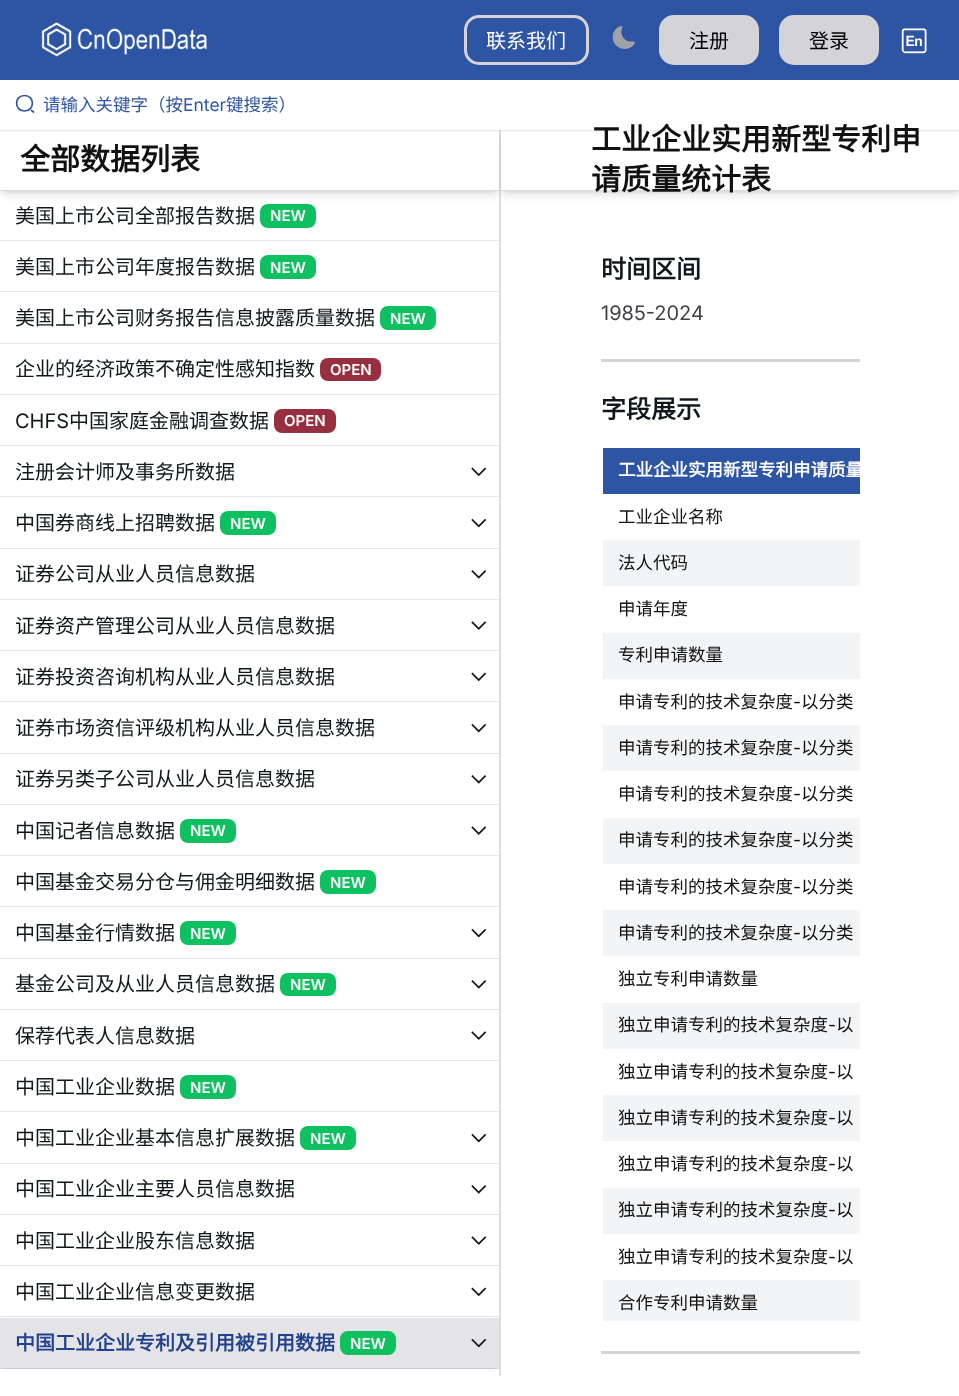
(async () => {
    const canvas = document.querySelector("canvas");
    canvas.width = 959;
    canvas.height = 1396;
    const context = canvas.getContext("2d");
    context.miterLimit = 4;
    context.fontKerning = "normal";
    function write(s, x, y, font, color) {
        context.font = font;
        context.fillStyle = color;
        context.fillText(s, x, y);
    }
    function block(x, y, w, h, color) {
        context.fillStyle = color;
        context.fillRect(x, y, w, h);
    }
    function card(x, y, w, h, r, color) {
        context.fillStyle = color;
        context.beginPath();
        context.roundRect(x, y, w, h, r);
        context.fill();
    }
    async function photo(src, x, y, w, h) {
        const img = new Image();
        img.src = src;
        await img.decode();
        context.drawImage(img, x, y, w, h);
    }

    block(0, 0, 959, 1396, "rgb(255, 255, 255)");
    block(0, 0, 959, 80, "rgb(46, 85, 164)");
    await photo("media/1.png", 41, 22, 167, 35);
    context.beginPath();
    context.roundRect(465.5, 16.5, 122, 47, 13.5);
    context.strokeStyle = "rgb(212, 212, 216)";
    context.lineWidth = 3;
    context.stroke();
    write("联系我们", 486, 48, "20px Noto Sans CJK SC", "rgb(255, 255, 255)");
    await photo("media/2.png", 612, 26, 23, 23);
    card(659, 15, 100, 50, 15, "rgb(212, 212, 216)");
    write("注册", 689, 48, "20px Noto Sans CJK SC", "rgb(0, 0, 0)");
    card(779, 15, 100, 50, 15, "rgb(212, 212, 216)");
    write("登录", 809, 48, "20px Noto Sans CJK SC", "rgb(0, 0, 0)");
    await photo("media/3.png", 901, 28, 26, 26);
    block(499, 130, 2, 1246, "rgb(221, 221, 221)");
    context.fillStyle = "rgba(0, 0, 0, 0.1)";
    context.filter = "blur(2.5px)";
    context.beginPath();
    context.rect(3, 135, 493, 56);
    context.fill();
    context.filter = "none";
    card(260, 204, 56, 24, 8, "rgb(15, 192, 96)");
    context.fillStyle = "rgba(0, 0, 0, 0.1)";
    context.filter = "blur(4px)";
    context.beginPath();
    context.rect(1, 136, 497, 59);
    context.fill();
    context.filter = "none";
    block(0, 130, 499, 60, "rgb(255, 255, 255)");
    block(0, 190, 499, 1, "rgb(219, 219, 219)");
    context.fillStyle = "rgba(0, 0, 0, 0.1)";
    context.filter = "blur(2.5px)";
    context.beginPath();
    context.rect(504, 135, 454, 56);
    context.fill();
    context.filter = "none";
    context.save();
    context.beginPath();
    context.rect(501, 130, 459, 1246);
    context.clip();
    context.filter = "blur(4px)";
    context.beginPath();
    context.rect(503, 136, 456, 59);
    context.fill();
    context.filter = "none";
    context.restore();
    block(501, 130, 458, 60, "rgb(255, 255, 255)");
    context.fillStyle = "rgba(0, 0, 0, 0.05)";
    context.filter = "blur(1px)";
    context.beginPath();
    context.rect(0, 81, 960, 50);
    context.fill();
    context.filter = "none";
    context.filter = "blur(1px)";
    context.beginPath();
    context.rect(0, 81, 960, 50);
    context.fill();
    context.filter = "none";
    block(0, 80, 959, 50, "rgb(255, 255, 255)");
    context.beginPath();
    context.moveTo(24.5, 111);
    context.bezierCurveTo(35, 111, 35, 95.5, 24.5, 95.5);
    context.bezierCurveTo(14, 95.5, 14, 111, 24.5, 111);
    context.closePath();
    context.moveTo(33.5, 112);
    context.lineTo(31.5, 110.5);
    context.strokeStyle = "rgb(46, 85, 164)";
    context.lineWidth = 1.7;
    context.lineCap = "round";
    context.lineJoin = "round";
    context.stroke();
    write("请输入关键字（按", 43, 111, "17.5px Noto Sans CJK SC", "rgb(46, 85, 164)");
    write("Enter", 183, 111, "17.5px Inter", "rgb(46, 85, 164)");
    write("键搜索）", 226, 111, "17.5px Noto Sans CJK SC", "rgb(46, 85, 164)");
    write("全部数据列表", 20, 170, "bold 30px Noto Sans CJK SC", "rgb(17, 17, 17)");
    block(0, 240, 499, 1, "rgb(229, 231, 235)");
    write("美国上市公司全部报告数据", 15, 223, "20px Noto Sans CJK SC", "rgb(17, 24, 28)");
    write("NEW", 270, 221, "600 15px Inter", "rgb(255, 255, 255)");
    block(0, 291, 499, 1, "rgb(229, 231, 235)");
    write("美国上市公司年度报告数据", 15, 274, "20px Noto Sans CJK SC", "rgb(17, 24, 28)");
    card(260, 255, 56, 24, 8, "rgb(15, 192, 96)");
    write("NEW", 270, 273, "600 15px Inter", "rgb(255, 255, 255)");
    block(0, 343, 499, 1, "rgb(229, 231, 235)");
    write("美国上市公司财务报告信息披露质量数据", 15, 325, "20px Noto Sans CJK SC", "rgb(17, 24, 28)");
    card(380, 306, 56, 24, 8, "rgb(15, 192, 96)");
    write("NEW", 390, 324, "600 15px Inter", "rgb(255, 255, 255)");
    block(0, 394, 499, 1, "rgb(229, 231, 235)");
    write("企业的经济政策不确定性感知指数", 15, 376, "20px Noto Sans CJK SC", "rgb(17, 24, 28)");
    card(320, 358, 61, 23, 8, "rgb(152, 47, 64)");
    write("OPEN", 330, 375, "600 15px Inter", "rgb(255, 255, 255)");
    block(0, 445, 499, 1, "rgb(229, 231, 235)");
    write("CHFS", 15, 428, "20px Inter", "rgb(17, 24, 28)");
    write("中国家庭金融调查数据", 69, 428, "20px Noto Sans CJK SC", "rgb(17, 24, 28)");
    card(274, 409, 62, 24, 8, "rgb(152, 47, 64)");
    write("OPEN", 284, 426, "600 15px Inter", "rgb(255, 255, 255)");
    block(0, 496, 499, 1, "rgb(229, 231, 235)");
    write("注册会计师及事务所数据", 15, 479, "20px Noto Sans CJK SC", "rgb(17, 24, 28)");
    await photo("media/4.png", 471, 467, 16, 10);
    block(0, 548, 499, 1, "rgb(229, 231, 235)");
    write("中国券商线上招聘数据", 15, 530, "20px Noto Sans CJK SC", "rgb(17, 24, 28)");
    card(220, 511, 56, 24, 8, "rgb(15, 192, 96)");
    write("NEW", 230, 529, "600 15px Inter", "rgb(255, 255, 255)");
    await photo("media/5.png", 471, 518, 16, 10);
    block(0, 599, 499, 1, "rgb(229, 231, 235)");
    write("证券公司从业人员信息数据", 15, 581, "20px Noto Sans CJK SC", "rgb(17, 24, 28)");
    await photo("media/6.png", 471, 570, 16, 9);
    block(0, 650, 499, 1, "rgb(229, 231, 235)");
    write("证券资产管理公司从业人员信息数据", 15, 633, "20px Noto Sans CJK SC", "rgb(17, 24, 28)");
    await photo("media/7.png", 471, 621, 16, 9);
    block(0, 701, 499, 1, "rgb(229, 231, 235)");
    write("证券投资咨询机构从业人员信息数据", 15, 684, "20px Noto Sans CJK SC", "rgb(17, 24, 28)");
    await photo("media/4.png", 471, 672, 16, 10);
    block(0, 753, 499, 1, "rgb(229, 231, 235)");
    write("证券市场资信评级机构从业人员信息数据", 15, 735, "20px Noto Sans CJK SC", "rgb(17, 24, 28)");
    await photo("media/5.png", 471, 723, 16, 10);
    block(0, 804, 499, 1, "rgb(229, 231, 235)");
    write("证券另类子公司从业人员信息数据", 15, 786, "20px Noto Sans CJK SC", "rgb(17, 24, 28)");
    await photo("media/6.png", 471, 775, 16, 9);
    block(0, 855, 499, 1, "rgb(229, 231, 235)");
    write("中国记者信息数据", 15, 838, "20px Noto Sans CJK SC", "rgb(17, 24, 28)");
    card(180, 819, 56, 24, 8, "rgb(15, 192, 96)");
    write("NEW", 190, 836, "600 15px Inter", "rgb(255, 255, 255)");
    await photo("media/7.png", 471, 826, 16, 9);
    block(0, 906, 499, 1, "rgb(229, 231, 235)");
    write("中国基金交易分仓与佣金明细数据", 15, 889, "20px Noto Sans CJK SC", "rgb(17, 24, 28)");
    card(320, 870, 56, 24, 8, "rgb(15, 192, 96)");
    write("NEW", 330, 888, "600 15px Inter", "rgb(255, 255, 255)");
    block(0, 958, 499, 1, "rgb(229, 231, 235)");
    write("中国基金行情数据", 15, 940, "20px Noto Sans CJK SC", "rgb(17, 24, 28)");
    card(180, 921, 56, 24, 8, "rgb(15, 192, 96)");
    write("NEW", 190, 939, "600 15px Inter", "rgb(255, 255, 255)");
    await photo("media/5.png", 471, 928, 16, 10);
    block(0, 1009, 499, 1, "rgb(229, 231, 235)");
    write("基金公司及从业人员信息数据", 15, 991, "20px Noto Sans CJK SC", "rgb(17, 24, 28)");
    card(280, 973, 56, 23, 8, "rgb(15, 192, 96)");
    write("NEW", 290, 990, "600 15px Inter", "rgb(255, 255, 255)");
    await photo("media/6.png", 471, 980, 16, 9);
    block(0, 1060, 499, 1, "rgb(229, 231, 235)");
    write("保荐代表人信息数据", 15, 1043, "20px Noto Sans CJK SC", "rgb(17, 24, 28)");
    await photo("media/7.png", 471, 1031, 16, 9);
    block(0, 1111, 499, 1, "rgb(229, 231, 235)");
    write("中国工业企业数据", 15, 1094, "20px Noto Sans CJK SC", "rgb(17, 24, 28)");
    card(180, 1075, 56, 24, 8, "rgb(15, 192, 96)");
    write("NEW", 190, 1093, "600 15px Inter", "rgb(255, 255, 255)");
    block(0, 1163, 499, 1, "rgb(229, 231, 235)");
    write("中国工业企业基本信息扩展数据", 15, 1145, "20px Noto Sans CJK SC", "rgb(17, 24, 28)");
    card(300, 1126, 56, 24, 8, "rgb(15, 192, 96)");
    write("NEW", 310, 1144, "600 15px Inter", "rgb(255, 255, 255)");
    await photo("media/5.png", 471, 1133, 16, 10);
    block(0, 1214, 499, 1, "rgb(229, 231, 235)");
    write("中国工业企业主要人员信息数据", 15, 1196, "20px Noto Sans CJK SC", "rgb(17, 24, 28)");
    await photo("media/6.png", 471, 1185, 16, 9);
    block(0, 1265, 499, 1, "rgb(229, 231, 235)");
    write("中国工业企业股东信息数据", 15, 1248, "20px Noto Sans CJK SC", "rgb(17, 24, 28)");
    await photo("media/7.png", 471, 1236, 16, 9);
    block(0, 1316, 499, 1, "rgb(229, 231, 235)");
    write("中国工业企业信息变更数据", 15, 1299, "20px Noto Sans CJK SC", "rgb(17, 24, 28)");
    await photo("media/4.png", 471, 1287, 16, 10);
    block(0, 1368, 499, 1, "rgb(229, 231, 235)");
    context.fillStyle = "rgba(0, 0, 0, 0.1)";
    context.filter = "blur(2.5px)";
    context.beginPath();
    context.rect(3, 1323, 493, 45);
    context.fill();
    context.filter = "none";
    context.save();
    context.beginPath();
    context.rect(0, 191, 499, 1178);
    context.clip();
    context.filter = "blur(4px)";
    context.beginPath();
    context.rect(1, 1324, 497, 47);
    context.fill();
    context.filter = "none";
    context.restore();
    block(0, 1318, 499, 50, "rgb(228, 228, 231)");
    write("中国工业企业专利及引用被引用数据", 15, 1350, "bold 20px Noto Sans CJK SC", "rgb(33, 65, 141)");
    card(340, 1331, 56, 24, 8, "rgb(15, 192, 96)");
    write("NEW", 350, 1349, "600 15px Inter", "rgb(255, 255, 255)");
    await photo("media/8.png", 471, 1338, 16, 10);
    block(501, 190, 458, 1, "rgb(219, 219, 219)");
    write("工业企业实用新型专利申", 591, 150, "bold 30px Noto Sans CJK SC", "rgb(17, 17, 17)");
    write("请质量统计表", 591, 190, "bold 30px Noto Sans CJK SC", "rgb(17, 17, 17)");
    write("时间区间", 601, 278, "bold 25px Noto Sans CJK SC", "rgb(17, 24, 28)");
    write("1985-2024", 601, 320, "20px Inter", "rgb(63, 63, 70)");
    block(601, 359, 259, 3, "rgb(212, 212, 216)");
    write("字段展示", 601, 418, "bold 25px Noto Sans CJK SC", "rgb(17, 24, 28)");
    block(603, 448, 257, 46, "rgb(46, 85, 164)");
    context.save();
    context.beginPath();
    context.rect(604, 449, 256, 44);
    context.clip();
    write("工业企业实用新型专利申请质量", 618, 476, "bold 17.5px Noto Sans CJK SC", "rgb(255, 255, 255)");
    context.restore();
    write("工业企业名称", 618, 523, "17.5px Noto Sans CJK SC", "rgb(17, 17, 17)");
    block(603, 540, 257, 46, "rgb(243, 244, 246)");
    write("法人代码", 618, 569, "17.5px Noto Sans CJK SC", "rgb(17, 17, 17)");
    write("申请年度", 618, 615, "17.5px Noto Sans CJK SC", "rgb(17, 17, 17)");
    block(603, 633, 257, 46, "rgb(243, 244, 246)");
    write("专利申请数量", 618, 661, "17.5px Noto Sans CJK SC", "rgb(17, 17, 17)");
    write("申请专利的技术复杂度", 618, 708, "17.5px Noto Sans CJK SC", "rgb(17, 17, 17)");
    write("-", 793, 708, "17.5px Inter", "rgb(17, 17, 17)");
    write("以分类", 801, 708, "17.5px Noto Sans CJK SC", "rgb(17, 17, 17)");
    block(603, 725, 257, 46, "rgb(243, 244, 246)");
    write("申请专利的技术复杂度", 618, 754, "17.5px Noto Sans CJK SC", "rgb(17, 17, 17)");
    write("-", 793, 754, "17.5px Inter", "rgb(17, 17, 17)");
    write("以分类", 801, 754, "17.5px Noto Sans CJK SC", "rgb(17, 17, 17)");
    write("申请专利的技术复杂度", 618, 800, "17.5px Noto Sans CJK SC", "rgb(17, 17, 17)");
    write("-", 793, 800, "17.5px Inter", "rgb(17, 17, 17)");
    write("以分类", 801, 800, "17.5px Noto Sans CJK SC", "rgb(17, 17, 17)");
    block(603, 818, 257, 46, "rgb(243, 244, 246)");
    write("申请专利的技术复杂度", 618, 846, "17.5px Noto Sans CJK SC", "rgb(17, 17, 17)");
    write("-", 793, 846, "17.5px Inter", "rgb(17, 17, 17)");
    write("以分类", 801, 846, "17.5px Noto Sans CJK SC", "rgb(17, 17, 17)");
    write("申请专利的技术复杂度", 618, 893, "17.5px Noto Sans CJK SC", "rgb(17, 17, 17)");
    write("-", 793, 893, "17.5px Inter", "rgb(17, 17, 17)");
    write("以分类", 801, 893, "17.5px Noto Sans CJK SC", "rgb(17, 17, 17)");
    block(603, 910, 257, 46, "rgb(243, 244, 246)");
    write("申请专利的技术复杂度", 618, 939, "17.5px Noto Sans CJK SC", "rgb(17, 17, 17)");
    write("-", 793, 939, "17.5px Inter", "rgb(17, 17, 17)");
    write("以分类", 801, 939, "17.5px Noto Sans CJK SC", "rgb(17, 17, 17)");
    write("独立专利申请数量", 618, 985, "17.5px Noto Sans CJK SC", "rgb(17, 17, 17)");
    block(603, 1003, 257, 46, "rgb(243, 244, 246)");
    write("独立申请专利的技术复杂度", 618, 1031, "17.5px Noto Sans CJK SC", "rgb(17, 17, 17)");
    write("-", 828, 1031, "17.5px Inter", "rgb(17, 17, 17)");
    write("以", 836, 1031, "17.5px Noto Sans CJK SC", "rgb(17, 17, 17)");
    write("独立申请专利的技术复杂度", 618, 1078, "17.5px Noto Sans CJK SC", "rgb(17, 17, 17)");
    write("-", 828, 1078, "17.5px Inter", "rgb(17, 17, 17)");
    write("以", 836, 1078, "17.5px Noto Sans CJK SC", "rgb(17, 17, 17)");
    block(603, 1095, 257, 46, "rgb(243, 244, 246)");
    write("独立申请专利的技术复杂度", 618, 1124, "17.5px Noto Sans CJK SC", "rgb(17, 17, 17)");
    write("-", 828, 1124, "17.5px Inter", "rgb(17, 17, 17)");
    write("以", 836, 1124, "17.5px Noto Sans CJK SC", "rgb(17, 17, 17)");
    write("独立申请专利的技术复杂度", 618, 1170, "17.5px Noto Sans CJK SC", "rgb(17, 17, 17)");
    write("-", 828, 1170, "17.5px Inter", "rgb(17, 17, 17)");
    write("以", 836, 1170, "17.5px Noto Sans CJK SC", "rgb(17, 17, 17)");
    block(603, 1188, 257, 46, "rgb(243, 244, 246)");
    write("独立申请专利的技术复杂度", 618, 1216, "17.5px Noto Sans CJK SC", "rgb(17, 17, 17)");
    write("-", 828, 1216, "17.5px Inter", "rgb(17, 17, 17)");
    write("以", 836, 1216, "17.5px Noto Sans CJK SC", "rgb(17, 17, 17)");
    write("独立申请专利的技术复杂度", 618, 1263, "17.5px Noto Sans CJK SC", "rgb(17, 17, 17)");
    write("-", 828, 1263, "17.5px Inter", "rgb(17, 17, 17)");
    write("以", 836, 1263, "17.5px Noto Sans CJK SC", "rgb(17, 17, 17)");
    block(603, 1280, 257, 41, "rgb(243, 244, 246)");
    write("合作专利申请数量", 618, 1309, "17.5px Noto Sans CJK SC", "rgb(17, 17, 17)");
    block(601, 1351, 259, 3, "rgb(212, 212, 216)");
})();
